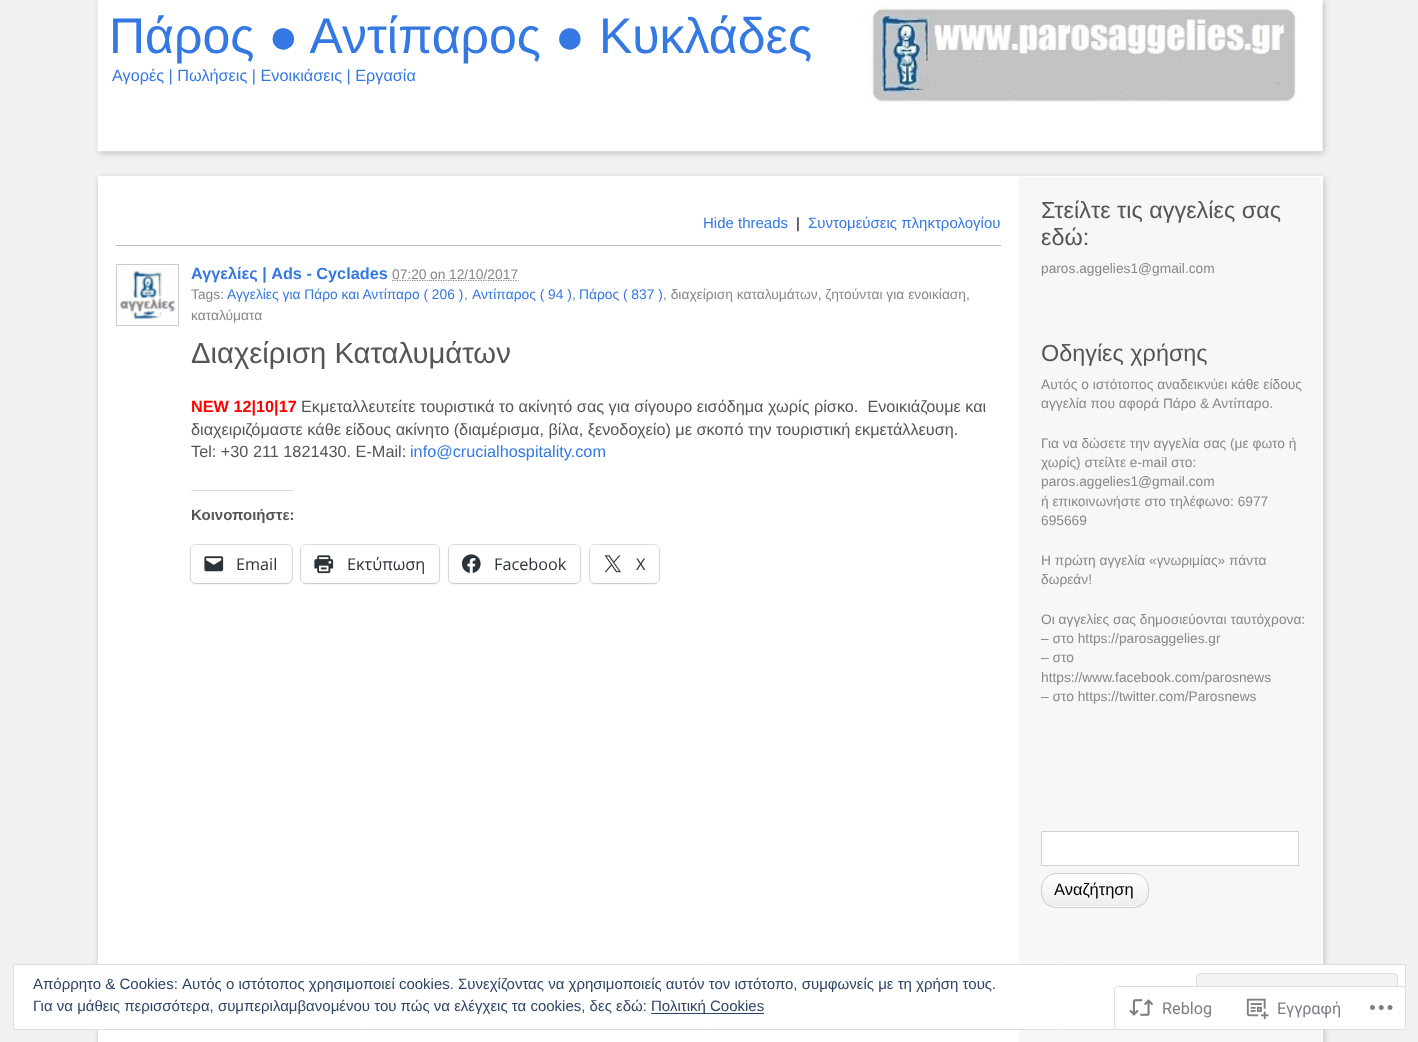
(async () => {
    const canvas = document.querySelector("canvas");
    canvas.width = 1418;
    canvas.height = 1042;
    const context = canvas.getContext("2d");
    context.miterLimit = 4;
    context.fontKerning = "normal";
    function write(s, x, y, font, color) {
        context.font = font;
        context.fillStyle = color;
        context.fillText(s, x, y);
    }
    function block(x, y, w, h, color) {
        context.fillStyle = color;
        context.fillRect(x, y, w, h);
    }
    function card(x, y, w, h, r, color) {
        context.fillStyle = color;
        context.beginPath();
        context.roundRect(x, y, w, h, r);
        context.fill();
    }
    async function photo(src, x, y, w, h) {
        const img = new Image();
        img.src = src;
        await img.decode();
        context.drawImage(img, x, y, w, h);
    }
    let gradient;

    block(0, 0, 1418, 1042, "rgb(241, 241, 241)");
    context.fillStyle = "rgba(0, 0, 0, 0.2)";
    context.filter = "blur(3px)";
    context.beginPath();
    context.rect(99, 1, 1225, 152);
    context.fill();
    context.filter = "none";
    await photo("media/1.png", 97, 0, 1226, 152);
    write("Πάρος ● Αντίπαρος ● Κυκλάδες", 109, 53, "50px Liberation Sans", "rgb(52, 120, 227)");
    write("Αγορές | Πωλήσεις | Ενοικιάσεις | Εργασία", 112, 81, "16.25px Liberation Sans", "rgb(52, 120, 227)");
    context.fillStyle = "rgba(0, 0, 0, 0.2)";
    context.filter = "blur(3px)";
    context.beginPath();
    context.rect(99, 178, 1225, 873);
    context.fill();
    context.filter = "none";
    block(99, 177, 1223, 865, "rgb(255, 255, 255)");
    block(1019, 177, 302, 865, "rgb(247, 247, 247)");
    context.strokeStyle = "rgb(255, 255, 255)";
    context.strokeRect(98.5, 176.5, 1224, 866);
    write("Hide threads", 703, 228, "15px Liberation Sans", "rgb(52, 120, 227)");
    write("|", 796, 228, "15px Liberation Sans", "rgb(0, 0, 0)");
    write("Συντομεύσεις πληκτρολογίου", 808, 228, "15px Liberation Sans", "rgb(52, 120, 227)");
    block(116, 245, 885, 1, "rgb(187, 187, 187)");
    context.strokeStyle = "rgb(204, 204, 204)";
    context.strokeRect(116.5, 264.5, 62, 61);
    await photo("media/2.png", 118, 265, 58, 55);
    write("Αγγελίες | Ads - Cyclades", 191, 279, "bold 16.25px Liberation Sans", "rgb(52, 120, 227)");
    context.beginPath();
    context.moveTo(392, 280.5);
    context.lineTo(430.5, 280.5);
    context.strokeStyle = "rgb(136, 136, 136)";
    context.lineWidth = 1.2;
    context.setLineDash([1.25, 1.25]);
    context.stroke();
    write("07:20", 392, 279, "13.8px Liberation Sans", "rgb(136, 136, 136)");
    context.beginPath();
    context.moveTo(430.5, 280.5);
    context.lineTo(445.5, 280.5);
    context.stroke();
    write("on", 430, 279, "13.8px Liberation Sans", "rgb(136, 136, 136)");
    context.beginPath();
    context.moveTo(445.5, 280.5);
    context.lineTo(518.5, 280.5);
    context.stroke();
    write("12/10/2017", 449, 279, "13.8px Liberation Sans", "rgb(136, 136, 136)");
    write("Tags:", 191, 299, "13.8px Liberation Sans", "rgb(136, 136, 136)");
    write("Αγγελίες για Πάρο και Αντίπαρο ( 206 )", 227, 299, "13.8px Liberation Sans", "rgb(52, 120, 227)");
    write(",", 464, 299, "13.8px Liberation Sans", "rgb(136, 136, 136)");
    write("Αντίπαρος ( 94 )", 472, 299, "13.8px Liberation Sans", "rgb(52, 120, 227)");
    write(",", 572, 299, "13.8px Liberation Sans", "rgb(136, 136, 136)");
    write("Πάρος ( 837 )", 579, 299, "13.8px Liberation Sans", "rgb(52, 120, 227)");
    write(", διαχείριση καταλυμάτων, ζητούνται για ενοικίαση,", 663, 299, "13.8px Liberation Sans", "rgb(136, 136, 136)");
    write("καταλύματα", 191, 320, "13.8px Liberation Sans", "rgb(136, 136, 136)");
    write("Διαχείριση Καταλυμάτων", 191, 363, "29.25px Liberation Sans", "rgb(85, 85, 85)");
    write("NEW 12|10|17", 191, 412, "bold 16.25px Liberation Sans", "rgb(255, 0, 0)");
    write("Εκμεταλλευτείτε τουριστικά το ακίνητό σας για σίγουρο εισόδημα χωρίς ρίσκο.  Ενοικιάζουμε και", 301, 412, "16.25px Liberation Sans", "rgb(85, 85, 85)");
    write("διαχειριζόμαστε κάθε είδους ακίνητο (διαμέρισμα, βίλα, ξενοδοχείο) με σκοπό την τουριστική εκμετάλλευση.", 191, 435, "16.25px Liberation Sans", "rgb(85, 85, 85)");
    write("Tel: +30 211 1821430. E-Mail:", 191, 457, "16.25px Liberation Sans", "rgb(85, 85, 85)");
    write("info@crucialhospitality.com", 410, 457, "16.25px Liberation Sans", "rgb(52, 120, 227)");
    block(191, 490, 103, 1, "rgb(220, 220, 222)");
    write("Κοινοποιήστε:", 191, 520, "bold 15px Liberation Sans", "rgb(85, 85, 85)");
    context.beginPath();
    context.roundRect(190.5, 544.5, 102, 39, 5.5);
    context.strokeStyle = "rgb(224, 224, 224)";
    context.lineWidth = 1;
    context.setLineDash([]);
    context.stroke();
    context.fillStyle = "rgba(0, 0, 0, 0.12)";
    context.filter = "blur(1px)";
    context.beginPath();
    context.roundRect(191, 546, 100, 38, 5);
    context.fill();
    context.filter = "none";
    card(191, 545, 100, 38, 5, "rgb(255, 255, 255)");
    await photo("media/3.png", 204, 556, 20, 16);
    write("Email", 236, 570, "16.25px Open Sans", "rgb(44, 51, 56)");
    context.beginPath();
    context.roundRect(300.5, 544.5, 139, 39, 5.5);
    context.stroke();
    context.fillStyle = "rgba(0, 0, 0, 0.12)";
    context.filter = "blur(1px)";
    context.beginPath();
    context.roundRect(301, 546, 138, 38, 5);
    context.fill();
    context.filter = "none";
    card(301, 545, 138, 38, 5, "rgb(255, 255, 255)");
    await photo("media/4.png", 314, 555, 20, 19);
    write("Εκτύπωση", 347, 570, "16.25px Open Sans", "rgb(44, 51, 56)");
    context.beginPath();
    context.roundRect(448.5, 544.5, 132, 39, 5.5);
    context.stroke();
    context.fillStyle = "rgba(0, 0, 0, 0.12)";
    context.filter = "blur(1px)";
    context.beginPath();
    context.roundRect(449, 546, 131, 38, 5);
    context.fill();
    context.filter = "none";
    card(449, 545, 131, 38, 5, "rgb(255, 255, 255)");
    await photo("media/5.png", 461, 554, 20, 19);
    write("Facebook", 494, 570, "16.25px Open Sans", "rgb(44, 51, 56)");
    context.beginPath();
    context.roundRect(589.5, 544.5, 70, 39, 5.5);
    context.stroke();
    context.fillStyle = "rgba(0, 0, 0, 0.12)";
    context.filter = "blur(1px)";
    context.beginPath();
    context.roundRect(590, 546, 69, 38, 5);
    context.fill();
    context.filter = "none";
    card(590, 545, 69, 38, 5, "rgb(255, 255, 255)");
    await photo("media/6.png", 604, 555, 17, 18);
    write("Χ", 636, 570, "16.25px Open Sans", "rgb(44, 51, 56)");
    write("Στείλτε τις αγγελίες σας", 1041, 218, "23.4px Liberation Sans", "rgb(85, 85, 85)");
    write("εδώ:", 1041, 245, "23.4px Liberation Sans", "rgb(85, 85, 85)");
    write("paros.aggelies1@gmail.com", 1041, 273, "13.75px Liberation Sans", "rgb(136, 136, 136)");
    write("Οδηγίες χρήσης", 1041, 361, "23.4px Liberation Sans", "rgb(85, 85, 85)");
    write("Αυτός ο ιστότοπος αναδεικνύει κάθε είδους", 1041, 389, "13.75px Liberation Sans", "rgb(136, 136, 136)");
    write("αγγελία που αφορά Πάρο & Αντίπαρο.", 1041, 408, "13.75px Liberation Sans", "rgb(136, 136, 136)");
    write("Για να δώσετε την αγγελία σας (με φωτο ή", 1041, 448, "13.75px Liberation Sans", "rgb(136, 136, 136)");
    write("χωρίς) στείλτε e-mail στο:", 1041, 467, "13.75px Liberation Sans", "rgb(136, 136, 136)");
    write("paros.aggelies1@gmail.com", 1041, 486, "13.75px Liberation Sans", "rgb(136, 136, 136)");
    write("ή επικοινωνήστε στο τηλέφωνο: 6977", 1041, 506, "13.75px Liberation Sans", "rgb(136, 136, 136)");
    write("695669", 1041, 525, "13.75px Liberation Sans", "rgb(136, 136, 136)");
    write("Η πρώτη αγγελία «γνωριμίας» πάντα", 1041, 565, "13.75px Liberation Sans", "rgb(136, 136, 136)");
    write("δωρεάν!", 1041, 584, "13.75px Liberation Sans", "rgb(136, 136, 136)");
    write("Οι αγγελίες σας δημοσιεύονται ταυτόχρονα:", 1041, 624, "13.75px Liberation Sans", "rgb(136, 136, 136)");
    write("– στο https://parosaggelies.gr", 1041, 643, "13.75px Liberation Sans", "rgb(136, 136, 136)");
    write("– στο", 1041, 662, "13.75px Liberation Sans", "rgb(136, 136, 136)");
    write("https://www.facebook.com/parosnews", 1041, 682, "13.75px Liberation Sans", "rgb(136, 136, 136)");
    write("– στο https://twitter.com/Parosnews", 1041, 701, "13.75px Liberation Sans", "rgb(136, 136, 136)");
    context.fillStyle = "rgb(255, 255, 255)";
    context.beginPath();
    context.rect(1041.5, 831.5, 257, 34);
    context.fill();
    context.strokeStyle = "rgb(209, 209, 209)";
    context.stroke();
    context.save();
    context.beginPath();
    context.roundRect(1041, 873, 108, 35, 15);
    context.clip();
    gradient = context.createLinearGradient(1095, 874, 1095, 906);
    gradient.addColorStop(0, "rgb(255, 255, 255)");
    gradient.addColorStop(1, "rgb(237, 237, 237)");
    context.fillStyle = gradient;
    context.fillRect(1041, 874, 108, 32);
    gradient = context.createLinearGradient(1095, 906, 1095, 939);
    gradient.addColorStop(0, "rgb(255, 255, 255)");
    gradient.addColorStop(1, "rgb(237, 237, 237)");
    context.fillStyle = gradient;
    context.fillRect(1041, 906, 108, 2);
    context.restore();
    context.beginPath();
    context.roundRect(1041.5, 873.5, 107, 34, 14.5);
    context.strokeStyle = "rgb(204, 204, 204)";
    context.stroke();
    write("Αναζήτηση", 1054, 895, "16.5px Liberation Sans", "rgb(0, 0, 0)");
    context.fillStyle = "rgb(255, 255, 255)";
    context.beginPath();
    context.rect(13.5, 964.5, 1392, 65);
    context.fill();
    context.strokeStyle = "rgb(222, 222, 222)";
    context.stroke();
    write("Απόρρητο & Cookies: Αυτός ο ιστότοπος χρησιμοποιεί cookies. Συνεχίζοντας να χρησιμοποιείς αυτόν τον ιστότοπο, συμφωνείς με τη χρήση τους.", 33, 989, "15px Liberation Sans", "rgb(46, 68, 103)");
    context.fillStyle = "rgb(243, 243, 243)";
    context.beginPath();
    context.roundRect(1196.5, 973.5, 201, 47, 3.5);
    context.fill();
    context.stroke();
    write("Για να μάθεις περισσότερα, συμπεριλαμβανομένου του πώς να ελέγχεις τα cookies, δες εδώ:", 33, 1011, "15px Liberation Sans", "rgb(46, 68, 103)");
    block(651, 1013, 113, 1, "rgb(46, 68, 103)");
    write("Πολιτική Cookies", 651, 1011, "15px Liberation Sans", "rgb(46, 68, 103)");
    card(1114, 986, 292, 44, 4, "rgba(255, 255, 255, 0.98)");
    context.beginPath();
    context.roundRect(1114.5, 986.5, 291, 43, 3.5);
    context.strokeStyle = "rgba(220, 220, 222, 0.98)";
    context.stroke();
    await photo("media/7.png", 1129, 999, 25, 17);
    write("Reblog", 1162, 1014, "16.25px Roboto", "rgb(123, 127, 132)");
    await photo("media/8.png", 1246, 998, 23, 22);
    write("Εγγραφή", 1277, 1014, "16.25px Roboto", "rgb(123, 127, 132)");
    await photo("media/9.png", 1370, 1005, 23, 5);
})();
